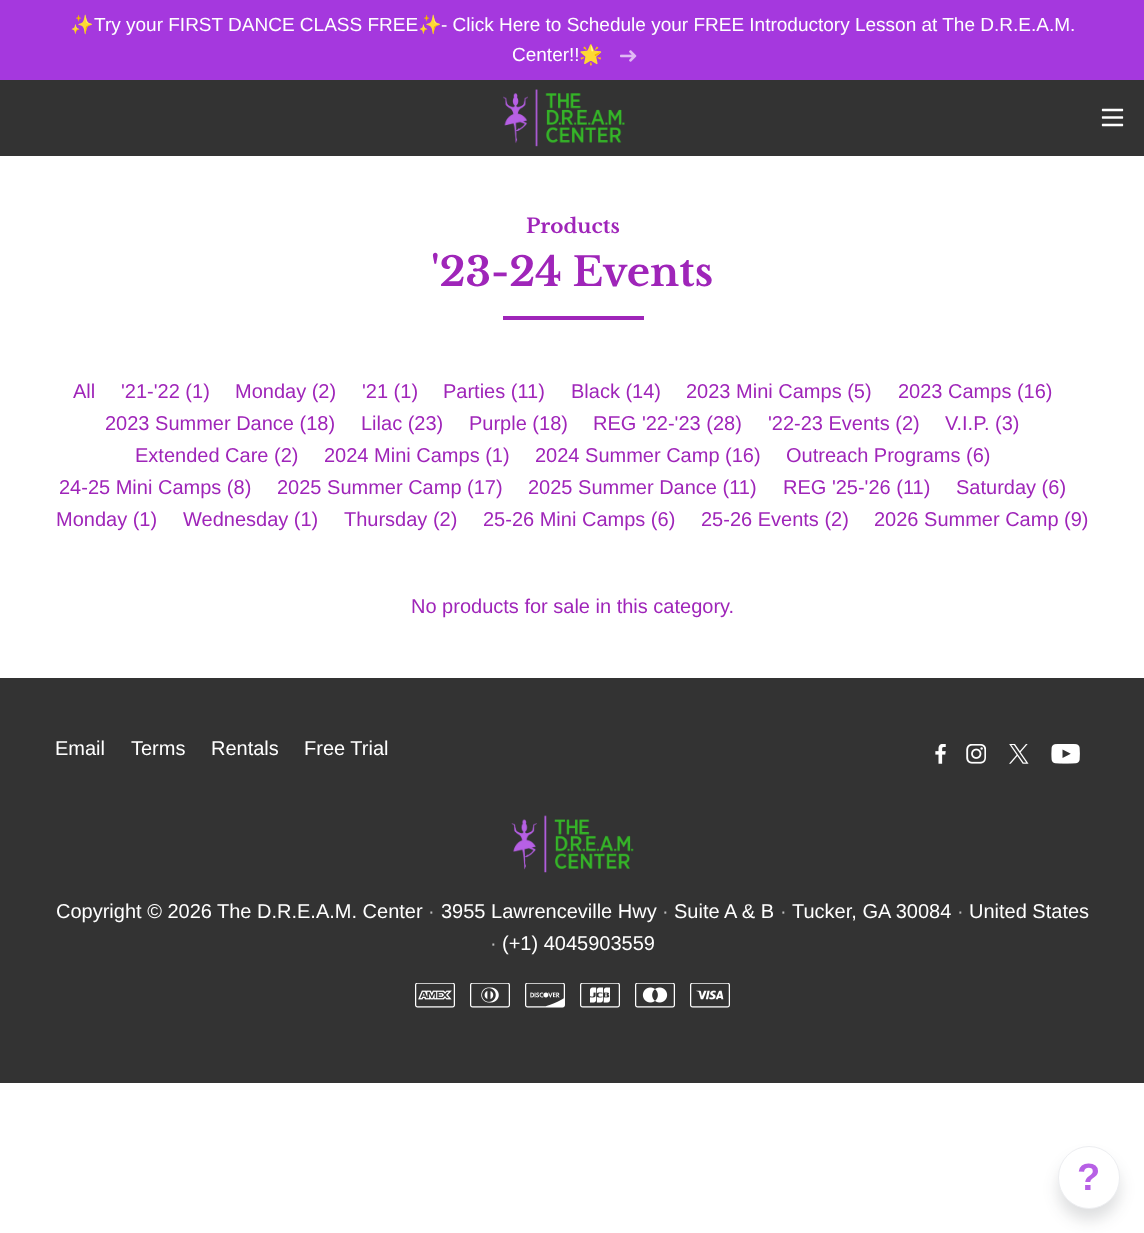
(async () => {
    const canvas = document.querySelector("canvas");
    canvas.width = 1144;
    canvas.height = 1233;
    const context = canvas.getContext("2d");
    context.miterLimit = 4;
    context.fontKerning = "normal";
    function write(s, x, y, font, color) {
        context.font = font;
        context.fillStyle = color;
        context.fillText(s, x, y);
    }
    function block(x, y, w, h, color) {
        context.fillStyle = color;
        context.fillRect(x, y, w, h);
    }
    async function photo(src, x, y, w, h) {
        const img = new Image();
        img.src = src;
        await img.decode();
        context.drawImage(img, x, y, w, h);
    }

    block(0, 0, 1144, 1233, "rgb(255, 255, 255)");
    block(0, 80, 1144, 76, "rgb(51, 51, 51)");
    block(0, 0, 1144, 80, "rgb(165, 56, 222)");
    write("✨", 70, 31, "19px Noto Color Emoji", "rgb(255, 255, 255)");
    write("Try your FIRST DANCE CLASS FREE", 94, 31, "19px Liberation Sans", "rgb(255, 255, 255)");
    write("✨", 418, 31, "19px Noto Color Emoji", "rgb(255, 255, 255)");
    write("- Click Here to Schedule your FREE Introductory Lesson at The D.R.E.A.M.", 441, 31, "19px Liberation Sans", "rgb(255, 255, 255)");
    write("Center!!", 512, 61, "19px Liberation Sans", "rgb(255, 255, 255)");
    write("🌟", 579, 61, "19px Noto Color Emoji", "rgb(255, 255, 255)");
    await photo("media/1.png", 620, 50, 17, 12);
    await photo("media/2.png", 503, 89, 122, 58);
    await photo("media/3.png", 1101, 108, 23, 19);
    write("Products", 526, 233, "bold 20px Libre Baskerville", "rgb(159, 37, 185)");
    write("'23-24 Events", 431, 286, "bold 40px Libre Baskerville", "rgb(159, 37, 185)");
    block(503, 316, 141, 4, "rgb(159, 37, 185)");
    write("All", 73, 398, "20px Liberation Sans", "rgb(159, 37, 185)");
    write("'21-'22 (1)", 121, 398, "20px Liberation Sans", "rgb(159, 37, 185)");
    write("Monday (2)", 235, 398, "20px Liberation Sans", "rgb(159, 37, 185)");
    write("'21 (1)", 362, 398, "20px Liberation Sans", "rgb(159, 37, 185)");
    write("Parties (11)", 443, 398, "20px Liberation Sans", "rgb(159, 37, 185)");
    write("Black (14)", 571, 398, "20px Liberation Sans", "rgb(159, 37, 185)");
    write("2023 Mini Camps (5)", 686, 398, "20px Liberation Sans", "rgb(159, 37, 185)");
    write("2023 Camps (16)", 898, 398, "20px Liberation Sans", "rgb(159, 37, 185)");
    write("2023 Summer Dance (18)", 105, 430, "20px Liberation Sans", "rgb(159, 37, 185)");
    write("Lilac (23)", 361, 430, "20px Liberation Sans", "rgb(159, 37, 185)");
    write("Purple (18)", 469, 430, "20px Liberation Sans", "rgb(159, 37, 185)");
    write("REG '22-'23 (28)", 593, 430, "20px Liberation Sans", "rgb(159, 37, 185)");
    write("'22-23 Events (2)", 768, 430, "20px Liberation Sans", "rgb(159, 37, 185)");
    write("V.I.P. (3)", 945, 430, "20px Liberation Sans", "rgb(159, 37, 185)");
    write("Extended Care (2)", 135, 462, "20px Liberation Sans", "rgb(159, 37, 185)");
    write("2024 Mini Camps (1)", 324, 462, "20px Liberation Sans", "rgb(159, 37, 185)");
    write("2024 Summer Camp (16)", 535, 462, "20px Liberation Sans", "rgb(159, 37, 185)");
    write("Outreach Programs (6)", 786, 462, "20px Liberation Sans", "rgb(159, 37, 185)");
    write("24-25 Mini Camps (8)", 59, 494, "20px Liberation Sans", "rgb(159, 37, 185)");
    write("2025 Summer Camp (17)", 277, 494, "20px Liberation Sans", "rgb(159, 37, 185)");
    write("2025 Summer Dance (11)", 528, 494, "20px Liberation Sans", "rgb(159, 37, 185)");
    write("REG '25-'26 (11)", 783, 494, "20px Liberation Sans", "rgb(159, 37, 185)");
    write("Saturday (6)", 956, 494, "20px Liberation Sans", "rgb(159, 37, 185)");
    write("Monday (1)", 56, 526, "20px Liberation Sans", "rgb(159, 37, 185)");
    write("Wednesday (1)", 183, 526, "20px Liberation Sans", "rgb(159, 37, 185)");
    write("Thursday (2)", 344, 526, "20px Liberation Sans", "rgb(159, 37, 185)");
    write("25-26 Mini Camps (6)", 483, 526, "20px Liberation Sans", "rgb(159, 37, 185)");
    write("25-26 Events (2)", 701, 526, "20px Liberation Sans", "rgb(159, 37, 185)");
    write("2026 Summer Camp (9)", 874, 526, "20px Liberation Sans", "rgb(159, 37, 185)");
    write("No products for sale in this category.", 411, 613, "20px Liberation Sans", "rgb(159, 37, 185)");
    block(0, 678, 1144, 405, "rgb(51, 51, 51)");
    write("Email", 55, 755, "20px Liberation Sans", "rgb(255, 255, 255)");
    write("Terms", 131, 755, "20px Liberation Sans", "rgb(255, 255, 255)");
    write("Rentals", 211, 755, "20px Liberation Sans", "rgb(255, 255, 255)");
    write("Free Trial", 304, 755, "20px Liberation Sans", "rgb(255, 255, 255)");
    await photo("media/4.png", 935, 744, 11, 20);
    await photo("media/5.png", 966, 744, 20, 20);
    await photo("media/6.png", 1009, 744, 20, 20);
    await photo("media/7.png", 1051, 744, 29, 20);
    await photo("media/8.png", 511, 815, 123, 58);
    write("Copyright © 2026", 56, 918, "20px Liberation Sans", "rgb(255, 255, 255)");
    write("The D.R.E.A.M. Center", 217, 918, "20px Liberation Sans", "rgb(255, 255, 255)");
    write("·", 428, 918, "20px Liberation Sans", "rgb(188, 188, 188)");
    write("3955 Lawrenceville Hwy", 441, 918, "20px Liberation Sans", "rgb(255, 255, 255)");
    write("·", 662, 918, "20px Liberation Sans", "rgb(188, 188, 188)");
    write("Suite A & B", 674, 918, "20px Liberation Sans", "rgb(255, 255, 255)");
    write("·", 780, 918, "20px Liberation Sans", "rgb(188, 188, 188)");
    write("Tucker, GA 30084", 792, 918, "20px Liberation Sans", "rgb(255, 255, 255)");
    write("·", 957, 918, "20px Liberation Sans", "rgb(188, 188, 188)");
    write("United States", 969, 918, "20px Liberation Sans", "rgb(255, 255, 255)");
    write("·", 490, 950, "20px Liberation Sans", "rgb(188, 188, 188)");
    write("(+1) 4045903559", 502, 950, "20px Liberation Sans", "rgb(255, 255, 255)");
    await photo("media/9.png", 415, 983, 40, 25);
    await photo("media/10.png", 470, 983, 40, 25);
    await photo("media/11.png", 525, 983, 40, 25);
    await photo("media/12.png", 580, 983, 40, 25);
    await photo("media/13.png", 635, 983, 40, 25);
    await photo("media/14.png", 690, 983, 40, 25);
    context.fillStyle = "rgba(34, 38, 47, 0.15)";
    context.filter = "blur(7.5px)";
    context.beginPath();
    context.roundRect(1058, 1158, 62, 62, 31);
    context.fill();
    context.filter = "none";
    context.fillStyle = "rgb(255, 255, 255)";
    context.beginPath();
    context.roundRect(1058.5, 1146.5, 61, 62, 30.5);
    context.fill();
    context.strokeStyle = "rgb(237, 238, 241)";
    context.stroke();
    write("?", 1077, 1190, "bold 38px Liberation Sans", "rgb(183, 96, 229)");
})();
